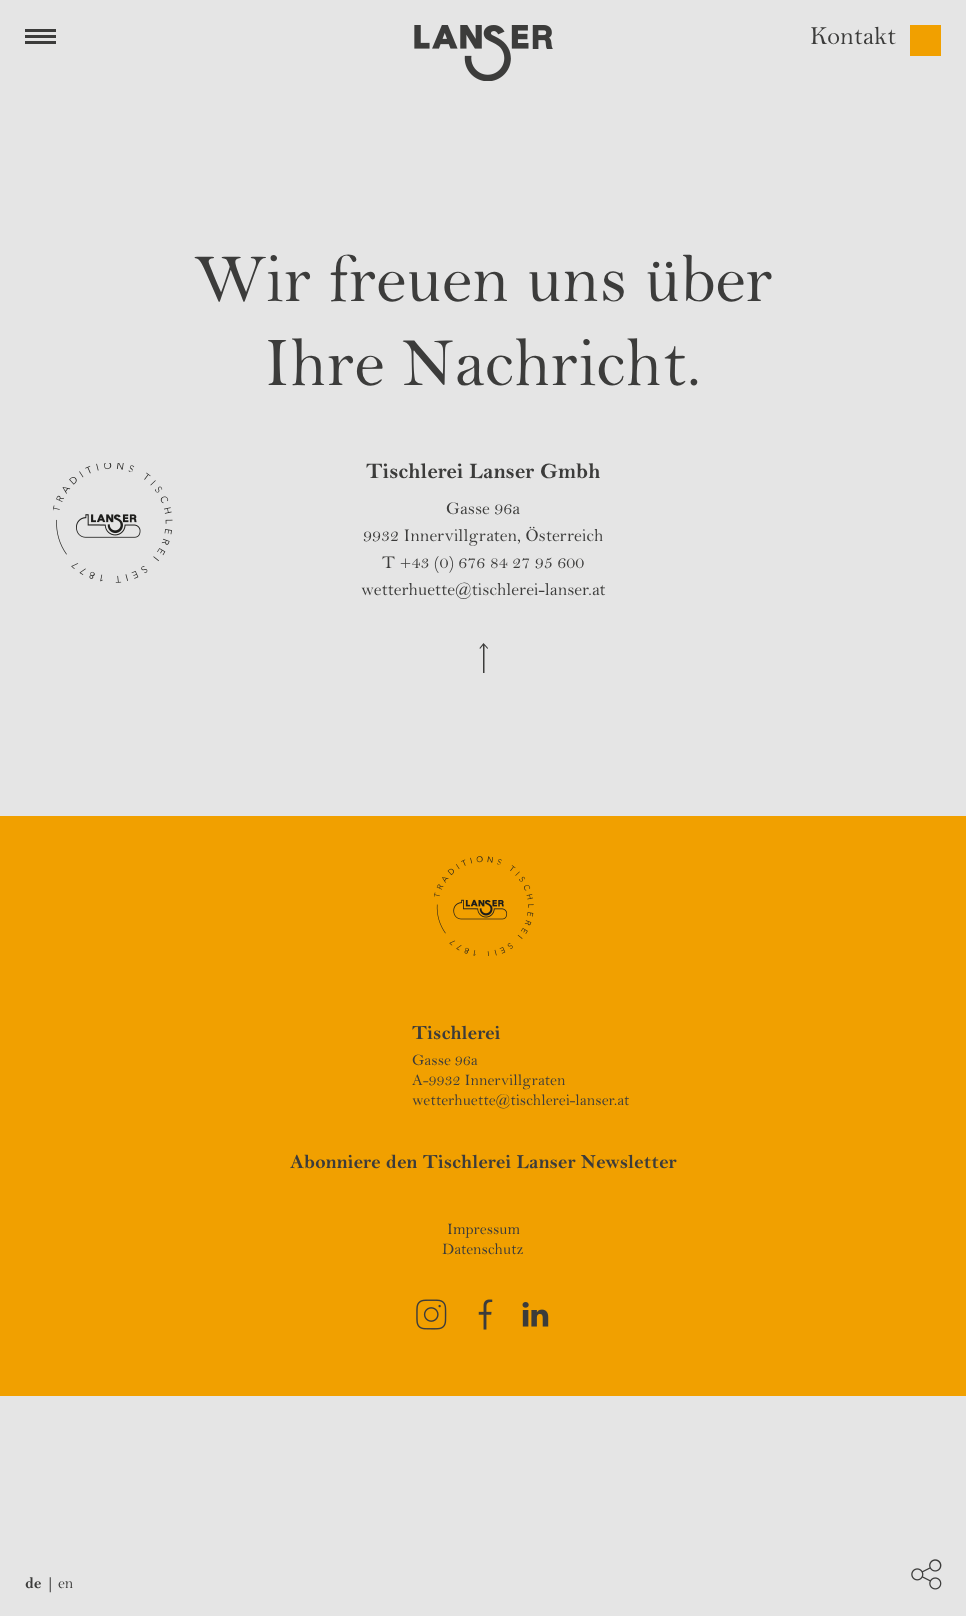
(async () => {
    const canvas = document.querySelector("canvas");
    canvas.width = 966;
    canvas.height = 1616;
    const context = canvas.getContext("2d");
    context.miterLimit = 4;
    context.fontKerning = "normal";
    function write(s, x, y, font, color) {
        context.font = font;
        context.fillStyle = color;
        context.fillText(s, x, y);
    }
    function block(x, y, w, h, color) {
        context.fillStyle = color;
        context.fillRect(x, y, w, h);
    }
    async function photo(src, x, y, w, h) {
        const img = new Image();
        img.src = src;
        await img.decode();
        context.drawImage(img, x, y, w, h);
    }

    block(0, 0, 966, 1616, "rgb(229, 229, 229)");
    await photo("media/1.png", 414, 25, 139, 56);
    block(910, 25, 31, 31, "rgb(241, 160, 0)");
    block(25, 29, 31, 3, "rgb(60, 60, 59)");
    block(25, 35, 31, 3, "rgb(60, 60, 59)");
    block(25, 41, 31, 3, "rgb(60, 60, 59)");
    write("Kontakt", 810, 44, "26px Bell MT", "rgb(60, 60, 59)");
    write("Wir freuen uns über", 194, 301, "70px Bell MT", "rgb(60, 60, 59)");
    write("Ihre Nachricht.", 264, 385, "70px Bell MT", "rgb(60, 60, 59)");
    await photo("media/2.png", 53, 463, 120, 120);
    write("Tischlerei Lanser Gmbh", 366, 478, "bold 22px Bell MT", "rgb(60, 60, 59)");
    write("Gasse 96a", 446, 514, "18px Bell MT", "rgb(60, 60, 59)");
    write("9932 Innervillgraten, Österreich", 363, 541, "18px Bell MT", "rgb(60, 60, 59)");
    write("T +43 (0) 676 84 27 95 600", 382, 568, "18px Bell MT", "rgb(60, 60, 59)");
    write("wetterhuette@tischlerei-lanser.at", 361, 595, "18px Bell MT", "rgb(60, 60, 59)");
    context.beginPath();
    context.moveTo(487.5, 649);
    context.lineTo(484.5, 645.5);
    context.lineTo(484.5, 673);
    context.lineTo(483, 673);
    context.lineTo(483, 645.5);
    context.lineTo(480, 649);
    context.lineTo(479.5, 648);
    context.lineTo(483.5, 643);
    context.lineTo(488, 648);
    context.closePath();
    context.fill();
    block(0, 816, 966, 580, "rgb(241, 160, 0)");
    await photo("media/3.png", 434, 856, 100, 100);
    write("Tischlerei", 412, 1039, "bold 20px Bell MT", "rgb(60, 60, 59)");
    write("Gasse 96a", 412, 1065, "16px Bell MT", "rgb(60, 60, 59)");
    write("A-9932 Innervillgraten", 412, 1085, "16px Bell MT", "rgb(60, 60, 59)");
    write("wetterhuette@tischlerei-lanser.at", 412, 1105, "16px Bell MT", "rgb(60, 60, 59)");
    write("Abonniere den Tischlerei Lanser Newsletter", 290, 1168, "bold 20px Bell MT", "rgb(60, 60, 59)");
    write("Impressum", 447, 1234, "16px Bell MT", "rgb(60, 60, 59)");
    write("Datenschutz", 442, 1254, "16px Bell MT", "rgb(60, 60, 59)");
    await photo("media/4.png", 416, 1299, 31, 31);
    await photo("media/5.png", 478, 1299, 15, 31);
    await photo("media/6.png", 522, 1302, 27, 25);
    write("de", 25, 1588, "bold 16px Bell MT", "rgb(60, 60, 59)");
    write("|", 46, 1588, "bold 16px Bell MT", "rgb(60, 60, 59)");
    write("en", 58, 1588, "16px Bell MT", "rgb(60, 60, 59)");
    await photo("media/7.png", 911, 1559, 31, 31);
})();
